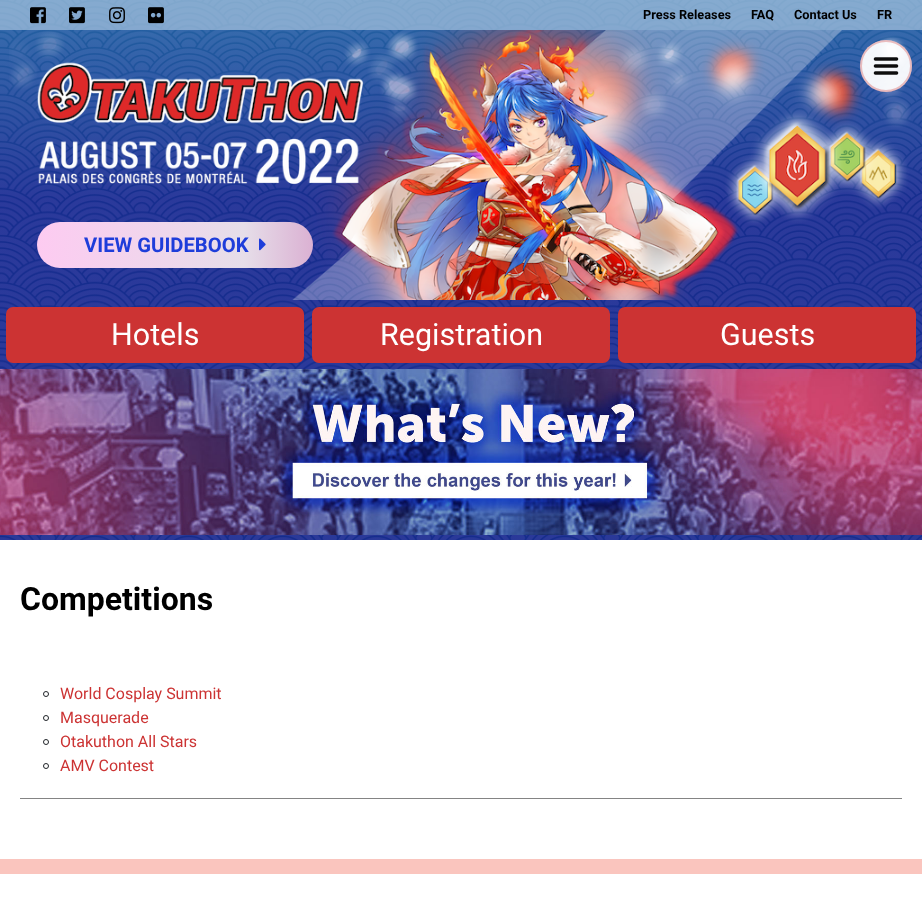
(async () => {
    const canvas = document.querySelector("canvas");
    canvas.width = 922;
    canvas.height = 907;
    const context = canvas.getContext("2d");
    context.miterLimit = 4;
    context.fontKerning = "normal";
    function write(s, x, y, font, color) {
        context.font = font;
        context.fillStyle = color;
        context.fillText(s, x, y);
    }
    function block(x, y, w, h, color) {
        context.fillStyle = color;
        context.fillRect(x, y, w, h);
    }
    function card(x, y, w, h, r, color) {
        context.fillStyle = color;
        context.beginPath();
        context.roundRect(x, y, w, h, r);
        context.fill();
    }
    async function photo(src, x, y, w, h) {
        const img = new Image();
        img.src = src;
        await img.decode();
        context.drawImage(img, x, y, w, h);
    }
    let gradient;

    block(0, 0, 922, 907, "rgb(255, 255, 255)");
    await photo("media/1.png", 0, 0, 922, 540);
    block(0, 0, 922, 30, "rgba(164, 193, 220, 0.72)");
    await photo("media/2.png", 30, 7, 16, 17);
    await photo("media/3.png", 69, 7, 16, 17);
    await photo("media/4.png", 109, 7, 16, 17);
    await photo("media/5.png", 148, 7, 16, 17);
    write("Press Releases", 643, 19, "bold 12.75px Roboto", "rgb(0, 0, 0)");
    write("FAQ", 751, 19, "bold 12.75px Roboto", "rgb(0, 0, 0)");
    write("Contact Us", 794, 19, "bold 12.75px Roboto", "rgb(0, 0, 0)");
    write("FR", 877, 19, "bold 12.75px Roboto", "rgb(0, 0, 0)");
    await photo("media/7.png", 9, 30, 902, 270);
    context.fillStyle = "rgba(255, 255, 255, 0.95)";
    context.beginPath();
    context.arc(886, 66, 26, 0, Math.PI * 2);
    context.fill();
    await photo("media/6.png", 873, 57, 26, 18);
    context.beginPath();
    context.arc(886, 66, 25, 0, Math.PI * 2);
    context.strokeStyle = "rgba(204, 51, 51, 0.3)";
    context.lineWidth = 2;
    context.stroke();
    gradient = context.createLinearGradient(37, 245, 865, 245);
    gradient.addColorStop(0, "rgb(253, 203, 241)");
    gradient.addColorStop(0.25, "rgb(230, 222, 233)");
    gradient.addColorStop(0.5, "rgb(196, 86, 166)");
    gradient.addColorStop(0.75, "rgb(206, 132, 197)");
    gradient.addColorStop(1, "rgb(58, 220, 239)");
    context.fillStyle = gradient;
    context.beginPath();
    context.roundRect(37, 222, 276, 46, 23);
    context.fill();
    write("VIEW GUIDEBOOK", 84, 252, "bold 20.25px Roboto", "rgb(30, 61, 218)");
    await photo("media/8.png", 259, 238, 7, 13);
    card(6, 307, 298, 56, 7, "rgb(204, 51, 51)");
    write("Hotels", 111, 345, "30.5px Roboto", "rgb(255, 255, 255)");
    card(312, 307, 298, 56, 7, "rgb(204, 51, 51)");
    write("Registration", 380, 345, "30.5px Roboto", "rgb(255, 255, 255)");
    card(618, 307, 298, 56, 7, "rgb(204, 51, 51)");
    write("Guests", 720, 345, "30.5px Roboto", "rgb(255, 255, 255)");
    await photo("media/9.png", 0, 369, 922, 166);
    block(0, 859, 922, 15, "rgb(250, 197, 190)");
    write("Competitions", 20, 610, "bold 32px Roboto", "rgb(0, 0, 0)");
    block(20, 798, 882, 1, "rgb(132, 132, 132)");
    context.beginPath();
    context.arc(46, 694, 2.5, 0, Math.PI * 2);
    context.strokeStyle = "rgb(33, 37, 41)";
    context.lineWidth = 1;
    context.stroke();
    write("World Cosplay Summit", 60, 699, "16px Roboto", "rgb(204, 51, 51)");
    context.beginPath();
    context.arc(46, 718, 2.5, 0, Math.PI * 2);
    context.stroke();
    write("Masquerade", 60, 723, "16px Roboto", "rgb(204, 51, 51)");
    context.beginPath();
    context.arc(46, 742, 2.5, 0, Math.PI * 2);
    context.stroke();
    write("Otakuthon All Stars", 60, 747, "16px Roboto", "rgb(204, 51, 51)");
    context.beginPath();
    context.arc(46, 766, 2.5, 0, Math.PI * 2);
    context.stroke();
    write("AMV Contest", 60, 771, "16px Roboto", "rgb(204, 51, 51)");
})();
